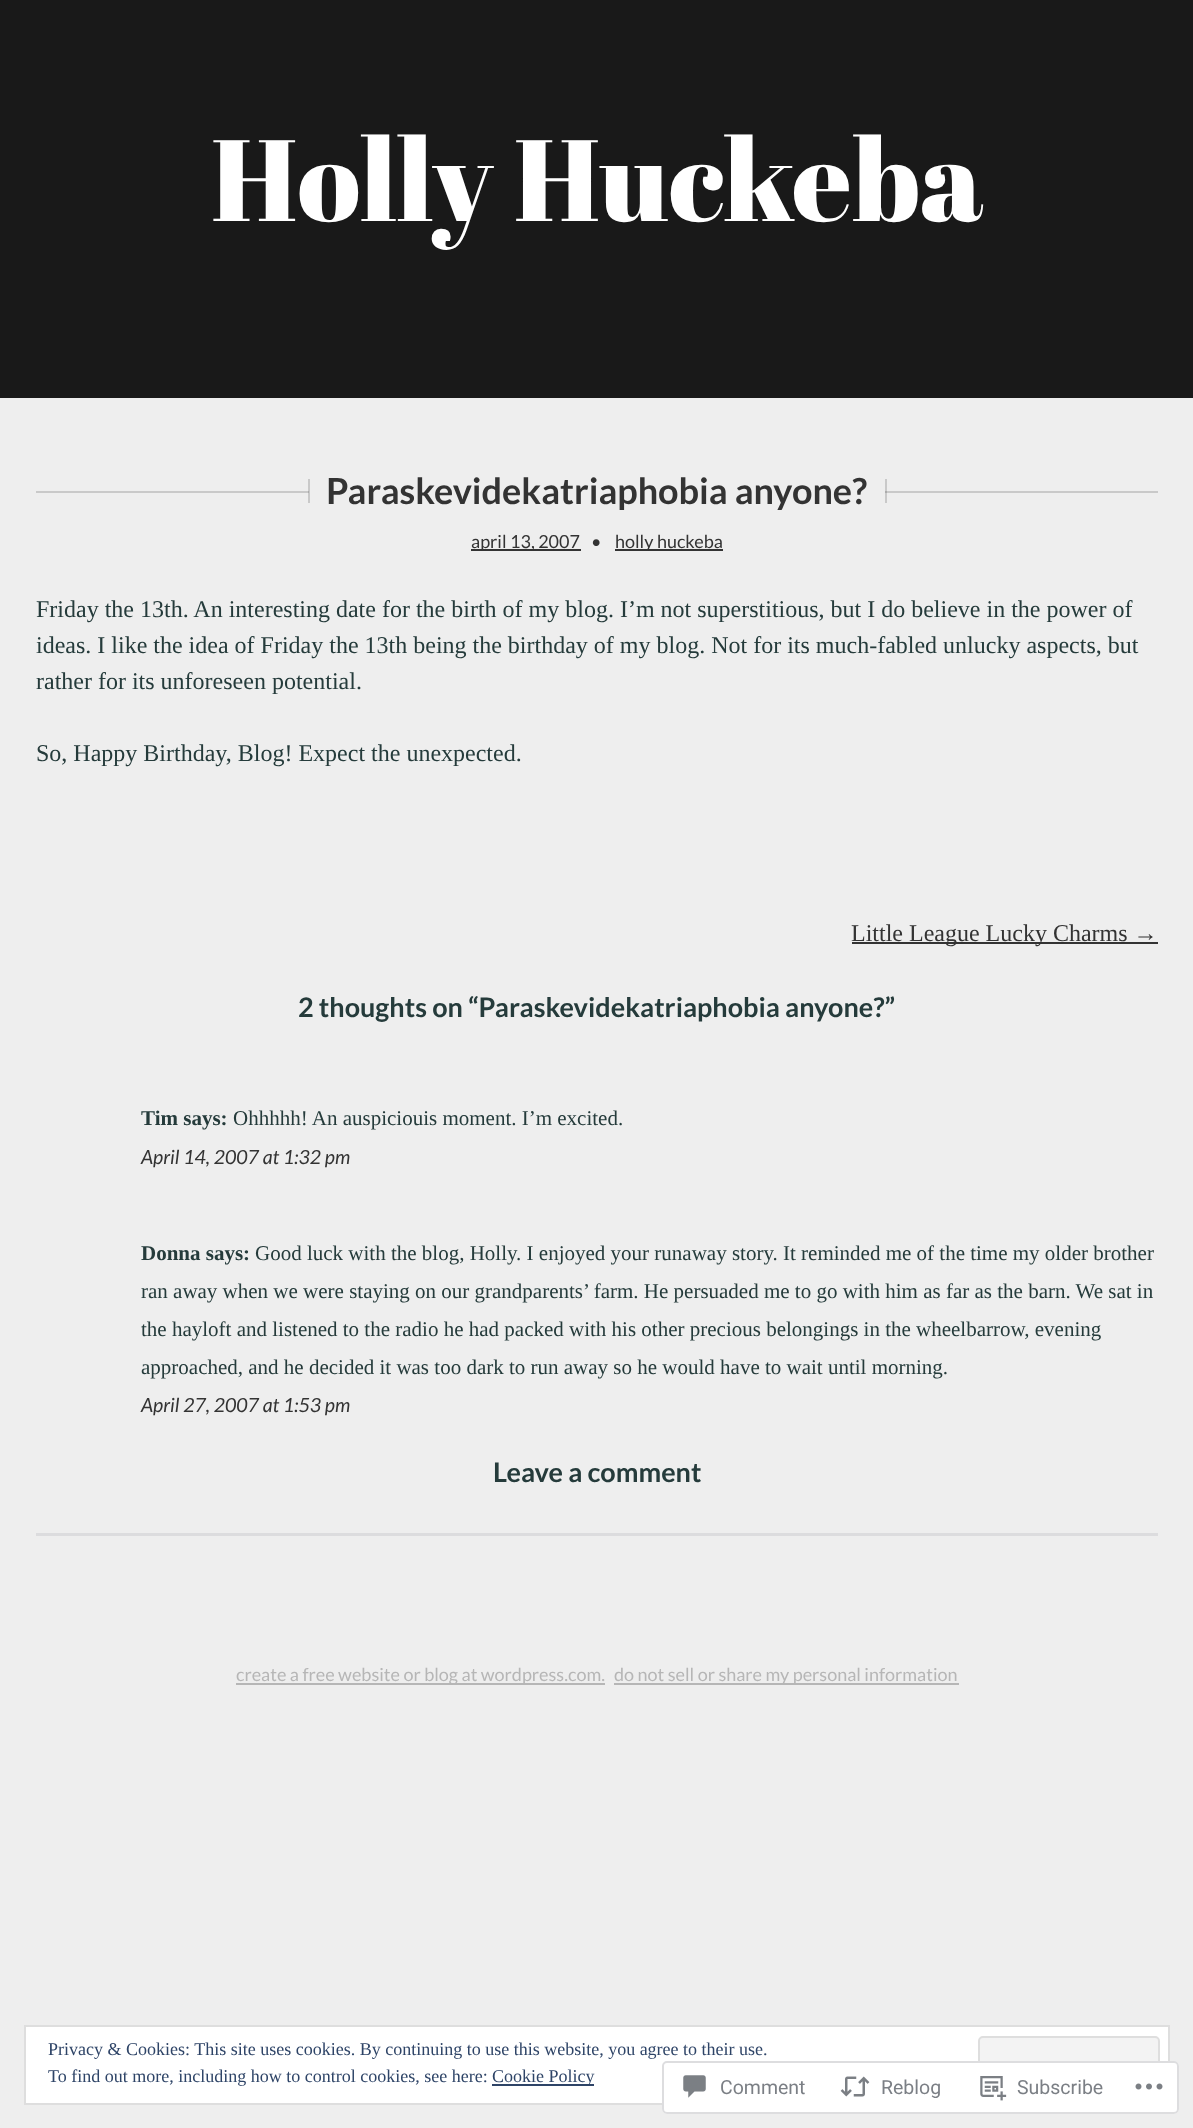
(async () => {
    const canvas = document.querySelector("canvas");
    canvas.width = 1193;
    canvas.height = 2128;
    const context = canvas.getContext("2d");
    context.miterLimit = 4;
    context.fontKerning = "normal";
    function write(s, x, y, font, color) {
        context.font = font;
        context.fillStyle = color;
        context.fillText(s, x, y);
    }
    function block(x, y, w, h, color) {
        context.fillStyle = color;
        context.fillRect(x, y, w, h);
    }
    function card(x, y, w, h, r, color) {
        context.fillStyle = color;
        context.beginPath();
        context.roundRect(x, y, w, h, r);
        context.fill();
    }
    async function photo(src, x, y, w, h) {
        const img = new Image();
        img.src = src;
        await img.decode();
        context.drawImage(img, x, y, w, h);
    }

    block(0, 0, 1193, 2128, "rgb(238, 238, 238)");
    block(885, 479, 2, 24, "rgb(201, 201, 201)");
    block(308, 479, 1, 24, "rgb(201, 201, 201)");
    block(0, 0, 1193, 398, "rgb(25, 25, 25)");
    write("Holly Huckeba", 211, 221, "115.5px Abril Fatface", "rgb(255, 255, 255)");
    block(36, 491, 1122, 2, "rgb(201, 201, 201)");
    block(308, 491, 2, 2, "rgb(171, 171, 171)");
    block(309, 491, 576, 2, "rgb(238, 238, 238)");
    block(309, 479, 1, 24, "rgb(201, 201, 201)");
    write("Paraskevidekatriaphobia anyone?", 326, 504, "bold 36px Lato", "rgb(51, 51, 51)");
    block(885, 491, 2, 2, "rgb(171, 171, 171)");
    block(471, 549, 110, 2, "rgb(51, 51, 51)");
    write("april 13, 2007", 471, 548, "18px Lato", "rgb(51, 51, 51)");
    write("•", 591, 548, "18px Lato", "rgb(51, 51, 51)");
    block(615, 549, 108, 2, "rgb(51, 51, 51)");
    write("holly huckeba", 615, 548, "18px Lato", "rgb(51, 51, 51)");
    write("Friday the 13th. An interesting date for the birth of my blog. I’m not superstitious, but I do believe in the power of", 36, 617, "24px Liberation Serif", "rgb(37, 59, 59)");
    write("ideas. I like the idea of Friday the 13th being the birthday of my blog. Not for its much-fabled unlucky aspects, but", 36, 653, "24px Liberation Serif", "rgb(37, 59, 59)");
    write("rather for its unforeseen potential.", 36, 689, "24px Liberation Serif", "rgb(37, 59, 59)");
    write("So, Happy Birthday, Blog! Expect the unexpected.", 36, 761, "24px Liberation Serif", "rgb(37, 59, 59)");
    block(852, 942, 306, 2, "rgb(51, 51, 51)");
    write("Little League Lucky Charms →", 851, 941, "24px Liberation Serif", "rgb(51, 51, 51)");
    write("2 thoughts on “Paraskevidekatriaphobia anyone?”", 298, 1017, "bold 27px Lato", "rgb(37, 59, 59)");
    write("Tim says:", 141, 1125, "bold 21px Liberation Serif", "rgb(37, 59, 59)");
    write("Ohhhhh! An auspiciouis moment. I’m excited.", 233, 1125, "21px Liberation Serif", "rgb(37, 59, 59)");
    write("April 14, 2007 at 1:32 pm", 141, 1164, "italic 19.5px Lato", "rgb(51, 51, 51)");
    write("Donna says:", 141, 1260, "bold 21px Liberation Serif", "rgb(37, 59, 59)");
    write("Good luck with the blog, Holly. I enjoyed your runaway story. It reminded me of the time my older brother", 255, 1260, "21px Liberation Serif", "rgb(37, 59, 59)");
    write("ran away when we were staying on our grandparents’ farm. He persuaded me to go with him as far as the barn. We sat in", 141, 1298, "21px Liberation Serif", "rgb(37, 59, 59)");
    write("the hayloft and listened to the radio he had packed with his other precious belongings in the wheelbarrow, evening", 141, 1336, "21px Liberation Serif", "rgb(37, 59, 59)");
    write("approached, and he decided it was too dark to run away so he would have to wait until morning.", 141, 1374, "21px Liberation Serif", "rgb(37, 59, 59)");
    write("April 27, 2007 at 1:53 pm", 141, 1412, "italic 19.5px Lato", "rgb(51, 51, 51)");
    write("Leave a comment", 493, 1482, "bold 27px Lato", "rgb(37, 59, 59)");
    block(36, 1533, 1122, 3, "rgb(220, 220, 222)");
    block(236, 1683, 369, 2, "rgb(182, 182, 182)");
    write("create a free website or blog at wordpress.com.", 236, 1681, "18px Lato", "rgb(182, 182, 182)");
    block(614, 1683, 345, 2, "rgb(182, 182, 182)");
    write("do not sell or share my personal information", 614, 1681, "18px Lato", "rgb(182, 182, 182)");
    context.fillStyle = "rgb(255, 255, 255)";
    context.beginPath();
    context.rect(25, 2026, 1144, 78);
    context.fill();
    context.strokeStyle = "rgb(222, 222, 222)";
    context.lineWidth = 2;
    context.stroke();
    write("Privacy & Cookies: This site uses cookies. By continuing to use this website, you agree to their use.", 48, 2055, "18px Liberation Serif", "rgb(46, 68, 103)");
    context.fillStyle = "rgb(243, 243, 243)";
    context.beginPath();
    context.roundRect(979, 2037, 180, 56, 4);
    context.fill();
    context.stroke();
    write("To find out more, including how to control cookies, see here:", 48, 2082, "18px Liberation Serif", "rgb(46, 68, 103)");
    block(492, 2084, 102, 2, "rgb(46, 68, 103)");
    write("Cookie Policy", 492, 2082, "18px Liberation Serif", "rgb(46, 68, 103)");
    card(662, 2061, 517, 53, 5, "rgba(255, 255, 255, 0.98)");
    context.beginPath();
    context.roundRect(663, 2062, 515, 51, 4);
    context.strokeStyle = "rgba(220, 220, 222, 0.98)";
    context.stroke();
    await photo("media/1.png", 683, 2075, 23, 23);
    write("Comment", 720, 2094, "19.5px Roboto", "rgb(123, 127, 133)");
    await photo("media/2.png", 840, 2076, 30, 21);
    write("Reblog", 881, 2094, "19.5px Roboto", "rgb(123, 127, 133)");
    await photo("media/3.png", 980, 2076, 27, 25);
    write("Subscribe", 1017, 2094, "19.5px Roboto", "rgb(123, 127, 133)");
    await photo("media/4.png", 1135, 2083, 28, 7);
})();
